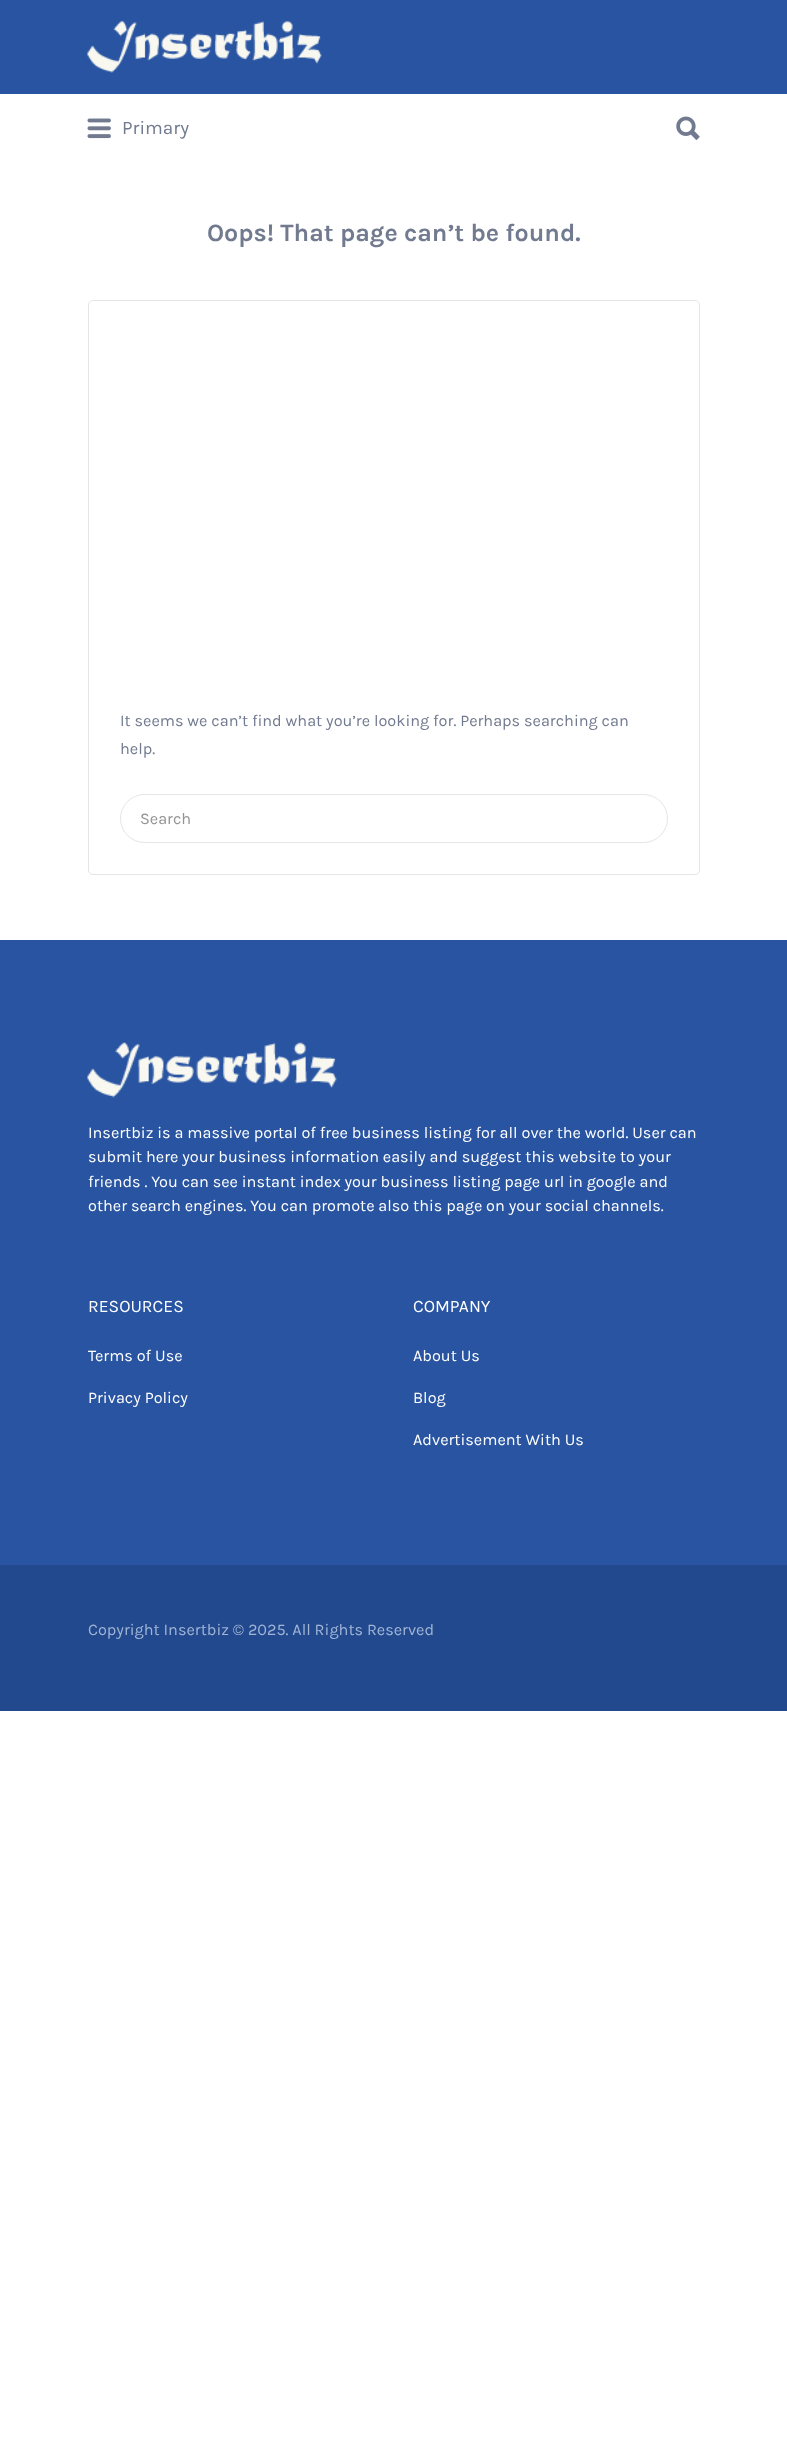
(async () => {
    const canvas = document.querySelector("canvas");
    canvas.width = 787;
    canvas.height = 2437;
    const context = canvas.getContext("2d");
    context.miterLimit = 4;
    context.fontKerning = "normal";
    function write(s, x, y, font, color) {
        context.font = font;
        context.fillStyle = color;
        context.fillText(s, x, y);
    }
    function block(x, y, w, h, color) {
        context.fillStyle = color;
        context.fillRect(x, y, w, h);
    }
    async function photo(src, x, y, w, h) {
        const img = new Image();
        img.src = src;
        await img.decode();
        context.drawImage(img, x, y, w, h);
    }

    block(0, 0, 787, 2437, "rgb(255, 255, 255)");
    block(0, 0, 787, 94, "rgb(40, 84, 161)");
    await photo("media/1.png", 87, 21, 235, 52);
    await photo("media/2.png", 87, 118, 24, 21);
    write("Primary", 122, 134, "19px Karla", "rgb(113, 122, 143)");
    await photo("media/3.png", 676, 116, 24, 24);
    write("Oops! That page can’t be found.", 207, 241, "bold 25px Karla", "rgb(113, 122, 143)");
    context.beginPath();
    context.roundRect(88.5, 300.5, 611, 574, 4.5);
    context.strokeStyle = "rgb(229, 229, 229)";
    context.stroke();
    write("It seems we can’t find what you’re looking for. Perhaps searching can", 120, 726, "16.25px Karla", "rgb(113, 122, 143)");
    write("help.", 120, 754, "16.25px Karla", "rgb(113, 122, 143)");
    context.beginPath();
    context.roundRect(120.5, 794.5, 547, 48, 24);
    context.stroke();
    write("Search", 140, 824, "16.25px Karla", "rgb(147, 147, 147)");
    block(0, 940, 787, 625, "rgb(40, 84, 161)");
    await photo("media/4.png", 87, 1042, 250, 56);
    write("Insertbiz is a massive portal of free business listing for all over the world. User can", 88, 1138, "16.25px Karla", "rgb(255, 255, 255)");
    write("submit here your business information easily and suggest this website to your", 88, 1162, "16.25px Karla", "rgb(255, 255, 255)");
    write("friends . You can see instant index your business listing page url in google and", 88, 1187, "16.25px Karla", "rgb(255, 255, 255)");
    write("other search engines. You can promote also this page on your social channels.", 88, 1211, "16.25px Karla", "rgb(255, 255, 255)");
    write("RESOURCES", 88, 1312, "17.5px Karla", "rgb(255, 255, 255)");
    write("Terms of Use", 88, 1361, "16.25px Karla", "rgb(255, 255, 255)");
    write("Privacy Policy", 88, 1403, "16.25px Karla", "rgb(255, 255, 255)");
    write("COMPANY", 413, 1312, "17.5px Karla", "rgb(255, 255, 255)");
    write("About Us", 413, 1361, "16.25px Karla", "rgb(255, 255, 255)");
    write("Blog", 413, 1403, "16.25px Karla", "rgb(255, 255, 255)");
    write("Advertisement With Us", 413, 1445, "16.25px Karla", "rgb(255, 255, 255)");
    block(0, 1565, 787, 146, "rgb(34, 73, 142)");
    write("Copyright Insertbiz © 2025. All Rights Reserved", 88, 1635, "16.25px Karla", "rgb(161, 181, 214)");
})();
